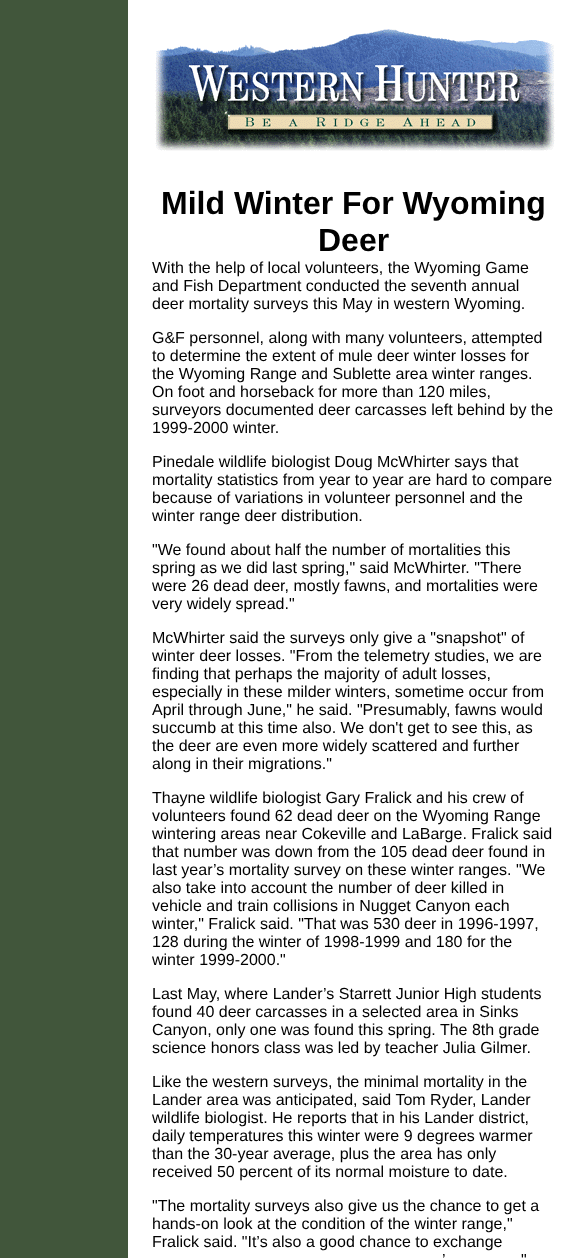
(async () => {
    const canvas = document.querySelector("canvas");
    canvas.width = 586;
    canvas.height = 1258;
    const context = canvas.getContext("2d");
    context.miterLimit = 4;
    context.fontKerning = "normal";
    function write(s, x, y, font, color) {
        context.font = font;
        context.fillStyle = color;
        context.fillText(s, x, y);
    }
    function block(x, y, w, h, color) {
        context.fillStyle = color;
        context.fillRect(x, y, w, h);
    }
    async function photo(src, x, y, w, h) {
        const img = new Image();
        img.src = src;
        await img.decode();
        context.drawImage(img, x, y, w, h);
    }

    block(0, 0, 586, 1258, "rgb(255, 255, 255)");
    block(0, 0, 128, 1258, "rgb(65, 86, 59)");
    await photo("media/1.png", 155, 29, 400, 122);
    write("Mild Winter For Wyoming", 161, 214, "bold 32px Liberation Sans", "rgb(0, 0, 0)");
    write("Deer", 318, 251, "bold 32px Liberation Sans", "rgb(0, 0, 0)");
    write("With the help of local volunteers, the Wyoming Game", 152, 273, "16px Liberation Sans", "rgb(0, 0, 0)");
    write("and Fish Department conducted the seventh annual", 152, 291, "16px Liberation Sans", "rgb(0, 0, 0)");
    write("deer mortality surveys this May in western Wyoming.", 152, 309, "16px Liberation Sans", "rgb(0, 0, 0)");
    write("G&F personnel, along with many volunteers, attempted", 152, 343, "16px Liberation Sans", "rgb(0, 0, 0)");
    write("to determine the extent of mule deer winter losses for", 152, 361, "16px Liberation Sans", "rgb(0, 0, 0)");
    write("the Wyoming Range and Sublette area winter ranges.", 152, 379, "16px Liberation Sans", "rgb(0, 0, 0)");
    write("On foot and horseback for more than 120 miles,", 152, 397, "16px Liberation Sans", "rgb(0, 0, 0)");
    write("surveyors documented deer carcasses left behind by the", 152, 415, "16px Liberation Sans", "rgb(0, 0, 0)");
    write("1999-2000 winter.", 152, 433, "16px Liberation Sans", "rgb(0, 0, 0)");
    write("Pinedale wildlife biologist Doug McWhirter says that", 152, 467, "16px Liberation Sans", "rgb(0, 0, 0)");
    write("mortality statistics from year to year are hard to compare", 152, 485, "16px Liberation Sans", "rgb(0, 0, 0)");
    write("because of variations in volunteer personnel and the", 152, 503, "16px Liberation Sans", "rgb(0, 0, 0)");
    write("winter range deer distribution.", 152, 521, "16px Liberation Sans", "rgb(0, 0, 0)");
    write("\"We found about half the number of mortalities this", 152, 555, "16px Liberation Sans", "rgb(0, 0, 0)");
    write("spring as we did last spring,\" said McWhirter. \"There", 152, 573, "16px Liberation Sans", "rgb(0, 0, 0)");
    write("were 26 dead deer, mostly fawns, and mortalities were", 152, 591, "16px Liberation Sans", "rgb(0, 0, 0)");
    write("very widely spread.\"", 152, 609, "16px Liberation Sans", "rgb(0, 0, 0)");
    write("McWhirter said the surveys only give a \"snapshot\" of", 152, 643, "16px Liberation Sans", "rgb(0, 0, 0)");
    write("winter deer losses. \"From the telemetry studies, we are", 152, 661, "16px Liberation Sans", "rgb(0, 0, 0)");
    write("finding that perhaps the majority of adult losses,", 152, 679, "16px Liberation Sans", "rgb(0, 0, 0)");
    write("especially in these milder winters, sometime occur from", 152, 697, "16px Liberation Sans", "rgb(0, 0, 0)");
    write("April through June,\" he said. \"Presumably, fawns would", 152, 715, "16px Liberation Sans", "rgb(0, 0, 0)");
    write("succumb at this time also. We don't get to see this, as", 152, 733, "16px Liberation Sans", "rgb(0, 0, 0)");
    write("the deer are even more widely scattered and further", 152, 751, "16px Liberation Sans", "rgb(0, 0, 0)");
    write("along in their migrations.\"", 152, 769, "16px Liberation Sans", "rgb(0, 0, 0)");
    write("Thayne wildlife biologist Gary Fralick and his crew of", 152, 803, "16px Liberation Sans", "rgb(0, 0, 0)");
    write("volunteers found 62 dead deer on the Wyoming Range", 152, 821, "16px Liberation Sans", "rgb(0, 0, 0)");
    write("wintering areas near Cokeville and LaBarge. Fralick said", 152, 839, "16px Liberation Sans", "rgb(0, 0, 0)");
    write("that number was down from the 105 dead deer found in", 152, 857, "16px Liberation Sans", "rgb(0, 0, 0)");
    write("last year’s mortality survey on these winter ranges. \"We", 152, 875, "16px Liberation Sans", "rgb(0, 0, 0)");
    write("also take into account the number of deer killed in", 152, 893, "16px Liberation Sans", "rgb(0, 0, 0)");
    write("vehicle and train collisions in Nugget Canyon each", 152, 911, "16px Liberation Sans", "rgb(0, 0, 0)");
    write("winter,\" Fralick said. \"That was 530 deer in 1996-1997,", 152, 929, "16px Liberation Sans", "rgb(0, 0, 0)");
    write("128 during the winter of 1998-1999 and 180 for the", 152, 947, "16px Liberation Sans", "rgb(0, 0, 0)");
    write("winter 1999-2000.\"", 152, 965, "16px Liberation Sans", "rgb(0, 0, 0)");
    write("Last May, where Lander’s Starrett Junior High students", 152, 999, "16px Liberation Sans", "rgb(0, 0, 0)");
    write("found 40 deer carcasses in a selected area in Sinks", 152, 1017, "16px Liberation Sans", "rgb(0, 0, 0)");
    write("Canyon, only one was found this spring. The 8th grade", 152, 1035, "16px Liberation Sans", "rgb(0, 0, 0)");
    write("science honors class was led by teacher Julia Gilmer.", 152, 1053, "16px Liberation Sans", "rgb(0, 0, 0)");
    write("Like the western surveys, the minimal mortality in the", 152, 1087, "16px Liberation Sans", "rgb(0, 0, 0)");
    write("Lander area was anticipated, said Tom Ryder, Lander", 152, 1105, "16px Liberation Sans", "rgb(0, 0, 0)");
    write("wildlife biologist. He reports that in his Lander district,", 152, 1123, "16px Liberation Sans", "rgb(0, 0, 0)");
    write("daily temperatures this winter were 9 degrees warmer", 152, 1141, "16px Liberation Sans", "rgb(0, 0, 0)");
    write("than the 30-year average, plus the area has only", 152, 1159, "16px Liberation Sans", "rgb(0, 0, 0)");
    write("received 50 percent of its normal moisture to date.", 152, 1177, "16px Liberation Sans", "rgb(0, 0, 0)");
    write("\"The mortality surveys also give us the chance to get a", 152, 1211, "16px Liberation Sans", "rgb(0, 0, 0)");
    write("hands-on look at the condition of the winter range,\"", 152, 1229, "16px Liberation Sans", "rgb(0, 0, 0)");
    write("Fralick said. \"It’s also a good chance to exchange", 152, 1247, "16px Liberation Sans", "rgb(0, 0, 0)");
    write("’", 442, 1265, "16px Liberation Sans", "rgb(0, 0, 0)");
    write("\"", 521, 1265, "16px Liberation Sans", "rgb(0, 0, 0)");
})();
